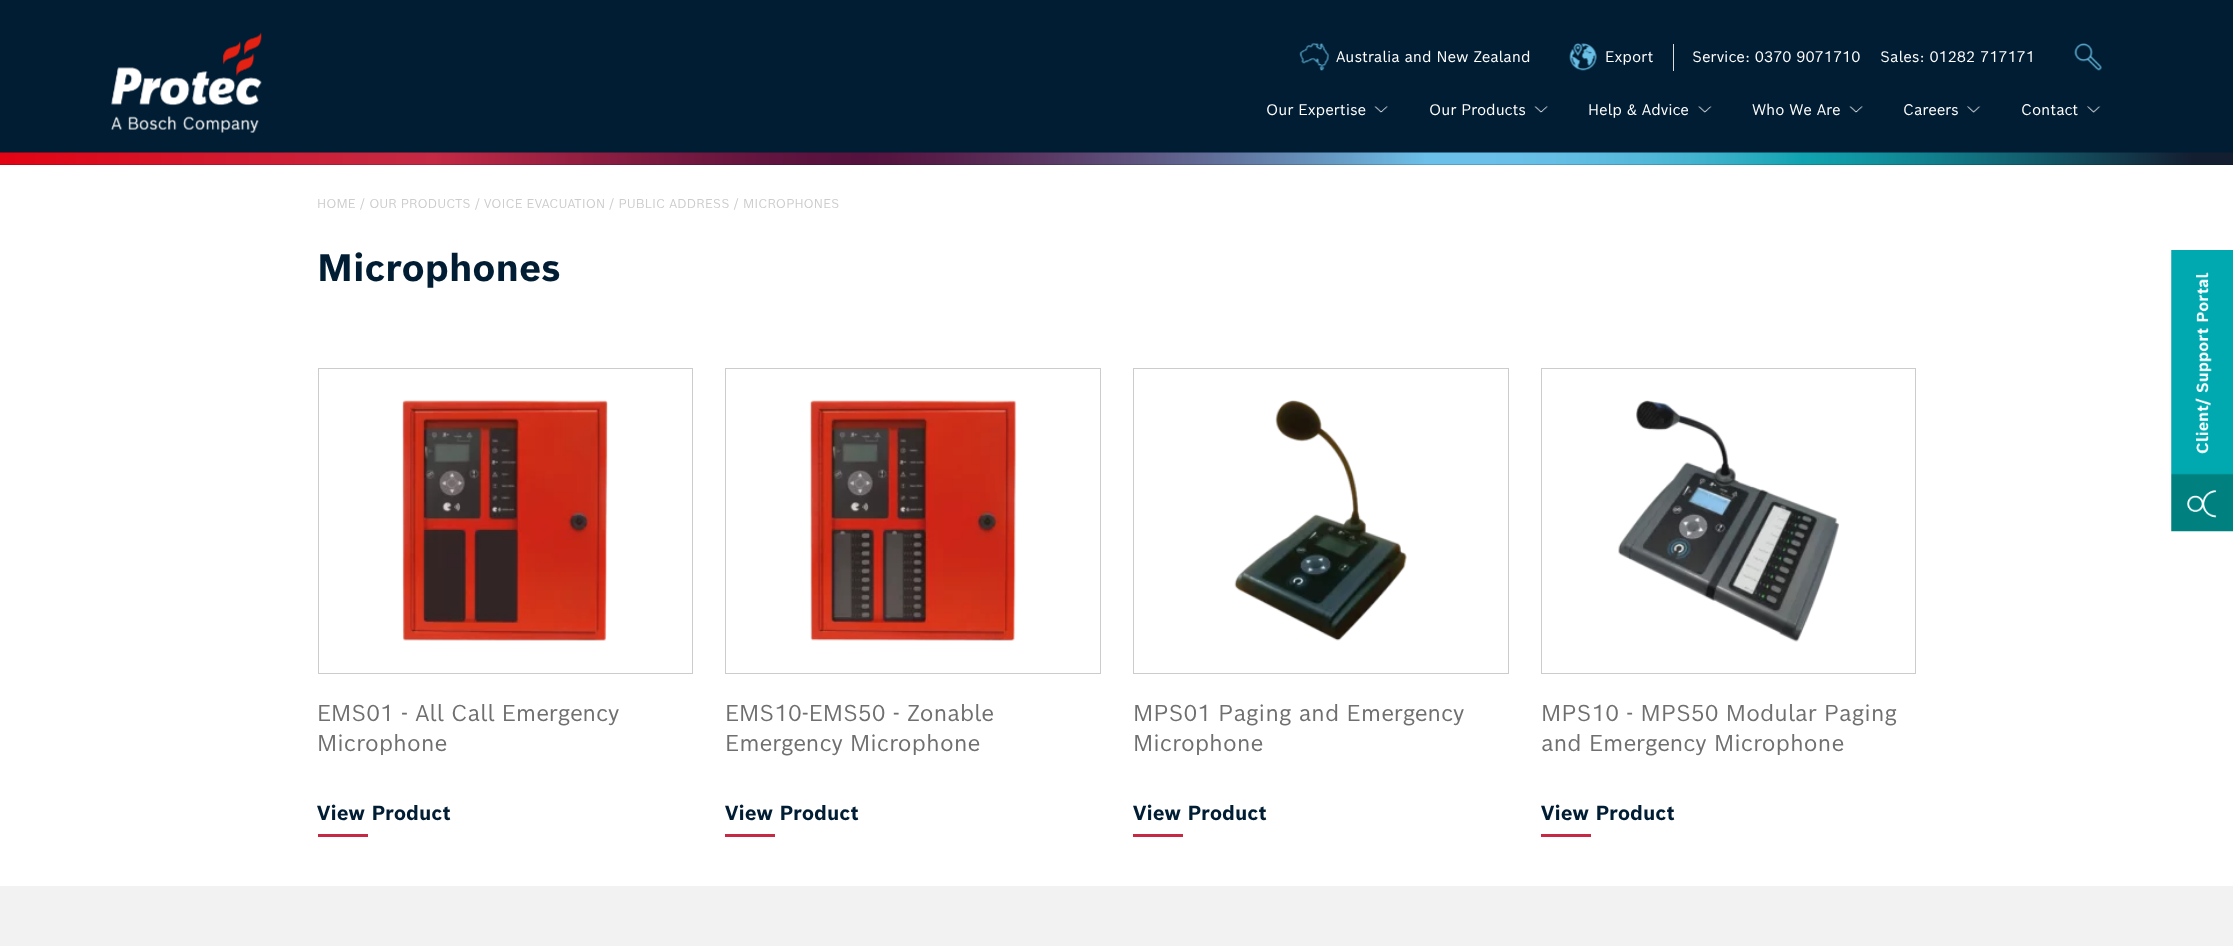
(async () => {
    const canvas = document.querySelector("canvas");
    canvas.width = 2233;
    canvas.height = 946;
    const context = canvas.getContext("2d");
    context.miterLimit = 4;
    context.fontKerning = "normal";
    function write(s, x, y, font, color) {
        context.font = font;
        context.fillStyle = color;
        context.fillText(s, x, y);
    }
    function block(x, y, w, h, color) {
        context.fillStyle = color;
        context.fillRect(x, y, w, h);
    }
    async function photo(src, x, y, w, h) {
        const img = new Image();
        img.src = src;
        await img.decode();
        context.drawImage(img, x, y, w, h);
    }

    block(0, 0, 2233, 946, "rgb(255, 255, 255)");
    block(0, 0, 2233, 165, "rgb(0, 29, 51)");
    await photo("media/1.png", 0, 152, 2233, 13);
    await photo("media/2.png", 111, 32, 151, 101);
    await photo("media/3.png", 1299, 43, 31, 28);
    write("Australia and New Zealand", 1336, 62, "15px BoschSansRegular", "rgb(255, 255, 255)");
    await photo("media/4.png", 1569, 43, 28, 28);
    write("Export", 1605, 62, "15px BoschSansRegular", "rgb(255, 255, 255)");
    block(1673, 44, 1, 27, "rgb(221, 221, 221)");
    write("Service: 0370 9071710", 1692, 62, "15px BoschSansRegular", "rgb(255, 255, 255)");
    write("Sales: 01282 717171", 1880, 62, "15px BoschSansRegular", "rgb(255, 255, 255)");
    await photo("media/5.png", 2074, 43, 28, 28);
    write("Our Expertise", 1266, 115, "15px BoschSansRegular", "rgb(255, 255, 255)");
    await photo("media/6.png", 1374, 106, 14, 7);
    write("Our Products", 1429, 115, "15px BoschSansRegular", "rgb(255, 255, 255)");
    await photo("media/6.png", 1534, 106, 14, 7);
    write("Help & Advice", 1588, 115, "15px BoschSansRegular", "rgb(255, 255, 255)");
    await photo("media/7.png", 1698, 106, 14, 7);
    write("Who We Are", 1752, 115, "15px BoschSansRegular", "rgb(255, 255, 255)");
    await photo("media/6.png", 1849, 106, 14, 7);
    write("Careers", 1903, 115, "15px BoschSansRegular", "rgb(255, 255, 255)");
    await photo("media/8.png", 1967, 106, 14, 7);
    write("Contact", 2021, 115, "15px BoschSansRegular", "rgb(255, 255, 255)");
    await photo("media/9.png", 2087, 106, 14, 7);
    write("HOME / OUR PRODUCTS / VOICE EVACUATION / PUBLIC ADDRESS / MICROPHONES", 317, 208, "12.5px BoschSansRegular", "rgb(204, 204, 204)");
    write("Microphones", 317, 281, "bold 37.5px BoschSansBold", "rgb(0, 29, 51)");
    context.strokeStyle = "rgb(204, 204, 204)";
    context.strokeRect(318.5, 368.5, 374, 305);
    await photo("media/10.png", 402, 400, 206, 241);
    write("EMS01 - All Call Emergency", 317, 721, "22.5px BoschSansRegular", "rgb(112, 111, 111)");
    write("Microphone", 317, 751, "22.5px BoschSansRegular", "rgb(112, 111, 111)");
    write("View Product", 317, 820, "bold 20px BoschSansBold", "rgb(0, 29, 51)");
    block(318, 834, 50, 3, "rgb(197, 41, 68)");
    context.strokeRect(725.5, 368.5, 375, 305);
    await photo("media/11.png", 809, 400, 208, 241);
    write("EMS10-EMS50 - Zonable", 725, 721, "22.5px BoschSansRegular", "rgb(112, 111, 111)");
    write("Emergency Microphone", 725, 751, "22.5px BoschSansRegular", "rgb(112, 111, 111)");
    write("View Product", 725, 820, "bold 20px BoschSansBold", "rgb(0, 29, 51)");
    block(725, 834, 50, 3, "rgb(197, 41, 68)");
    context.strokeRect(1133.5, 368.5, 375, 305);
    await photo("media/12.png", 1234, 400, 173, 241);
    write("MPS01 Paging and Emergency", 1133, 721, "22.5px BoschSansRegular", "rgb(112, 111, 111)");
    write("Microphone", 1133, 751, "22.5px BoschSansRegular", "rgb(112, 111, 111)");
    write("View Product", 1133, 820, "bold 20px BoschSansBold", "rgb(0, 29, 51)");
    block(1133, 834, 50, 3, "rgb(197, 41, 68)");
    context.strokeRect(1541.5, 368.5, 374, 305);
    await photo("media/13.png", 1618, 400, 222, 242);
    write("MPS10 - MPS50 Modular Paging", 1541, 721, "22.5px BoschSansRegular", "rgb(112, 111, 111)");
    write("and Emergency Microphone", 1541, 751, "22.5px BoschSansRegular", "rgb(112, 111, 111)");
    write("View Product", 1541, 820, "bold 20px BoschSansBold", "rgb(0, 29, 51)");
    block(1541, 834, 50, 3, "rgb(197, 41, 68)");
    block(0, 886, 2233, 60, "rgb(242, 242, 242)");
    await photo("media/14.png", 2171, 250, 62, 282);
})();
